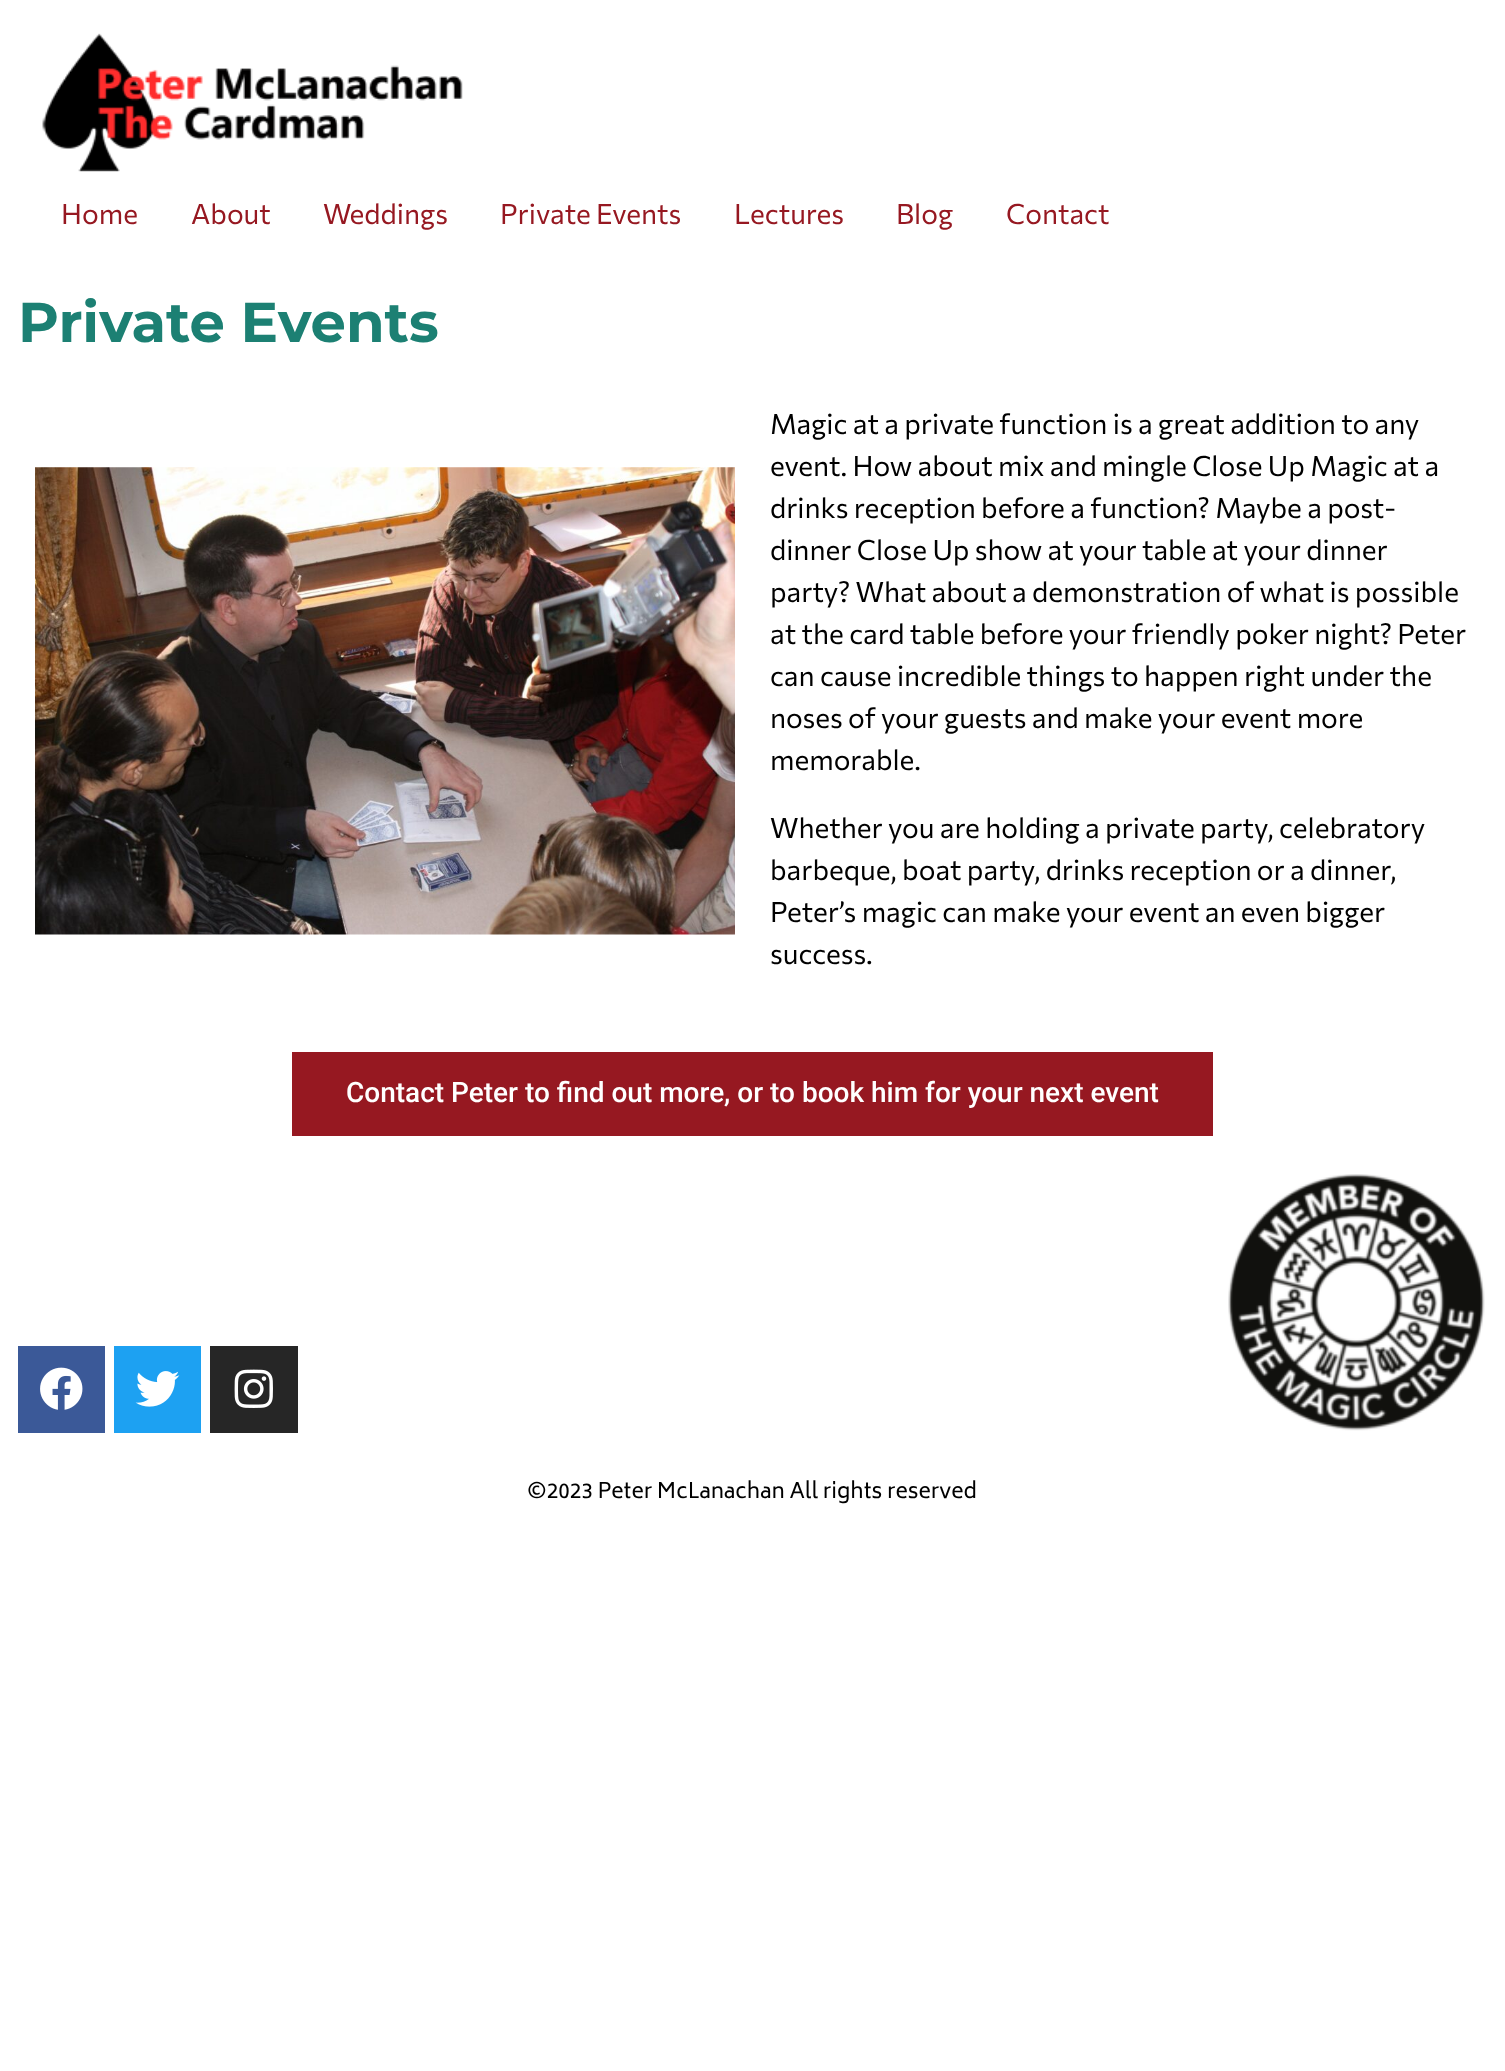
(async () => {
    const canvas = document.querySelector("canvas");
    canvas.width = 1505;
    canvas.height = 2071;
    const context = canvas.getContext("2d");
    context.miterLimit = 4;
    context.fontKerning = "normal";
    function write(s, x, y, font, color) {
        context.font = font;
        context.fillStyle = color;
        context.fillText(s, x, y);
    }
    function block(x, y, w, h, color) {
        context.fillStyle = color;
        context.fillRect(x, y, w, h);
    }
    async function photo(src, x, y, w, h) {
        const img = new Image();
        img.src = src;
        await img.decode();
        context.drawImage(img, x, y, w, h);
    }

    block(0, 0, 1505, 2071, "rgb(255, 255, 255)");
    await photo("media/1.png", 42, 33, 421, 139);
    write("Home", 61, 224, "28px Commissioner", "rgb(150, 24, 33)");
    write("About", 191, 224, "28px Commissioner", "rgb(150, 24, 33)");
    write("Weddings", 323, 224, "28px Commissioner", "rgb(150, 24, 33)");
    write("Private Events", 500, 224, "28px Commissioner", "rgb(150, 24, 33)");
    write("Lectures", 734, 224, "28px Commissioner", "rgb(150, 24, 33)");
    write("Blog", 896, 224, "28px Commissioner", "rgb(150, 24, 33)");
    write("Contact", 1006, 224, "28px Commissioner", "rgb(150, 24, 33)");
    write("Private Events", 18, 342, "bold 56px Montserrat", "rgb(28, 128, 115)");
    await photo("media/2.png", 35, 467, 700, 468);
    write("Magic at a private function is a great addition to any", 770, 434, "28px Commissioner", "rgb(0, 0, 0)");
    write("event. How about mix and mingle Close Up Magic at a", 770, 476, "28px Commissioner", "rgb(0, 0, 0)");
    write("drinks reception before a function? Maybe a post-", 770, 518, "28px Commissioner", "rgb(0, 0, 0)");
    write("dinner Close Up show at your table at your dinner", 770, 560, "28px Commissioner", "rgb(0, 0, 0)");
    write("party? What about a demonstration of what is possible", 770, 602, "28px Commissioner", "rgb(0, 0, 0)");
    write("at the card table before your friendly poker night? Peter", 770, 644, "28px Commissioner", "rgb(0, 0, 0)");
    write("can cause incredible things to happen right under the", 770, 686, "28px Commissioner", "rgb(0, 0, 0)");
    write("noses of your guests and make your event more", 770, 728, "28px Commissioner", "rgb(0, 0, 0)");
    write("memorable.", 770, 770, "28px Commissioner", "rgb(0, 0, 0)");
    write("Whether you are holding a private party, celebratory", 770, 838, "28px Commissioner", "rgb(0, 0, 0)");
    write("barbeque, boat party, drinks reception or a dinner,", 770, 880, "28px Commissioner", "rgb(0, 0, 0)");
    write("Peter’s magic can make your event an even bigger", 770, 922, "28px Commissioner", "rgb(0, 0, 0)");
    write("success.", 770, 964, "28px Commissioner", "rgb(0, 0, 0)");
    block(292, 1052, 921, 84, "rgb(150, 24, 33)");
    write("Contact Peter to find out more, or to book him for your next event", 346, 1102, "500 28px Roboto", "rgb(255, 255, 255)");
    block(18, 1346, 87, 87, "rgb(59, 89, 152)");
    await photo("media/3.png", 40, 1367, 43, 43);
    block(114, 1346, 87, 87, "rgb(29, 161, 242)");
    await photo("media/4.png", 135, 1371, 45, 36);
    block(210, 1346, 88, 87, "rgb(38, 38, 38)");
    await photo("media/5.png", 234, 1369, 39, 39);
    await photo("media/6.png", 1228, 1174, 257, 257);
    write("©2023 Peter McLanachan All rights reserved", 527, 1498, "21px Biryani", "rgb(0, 0, 0)");
})();
